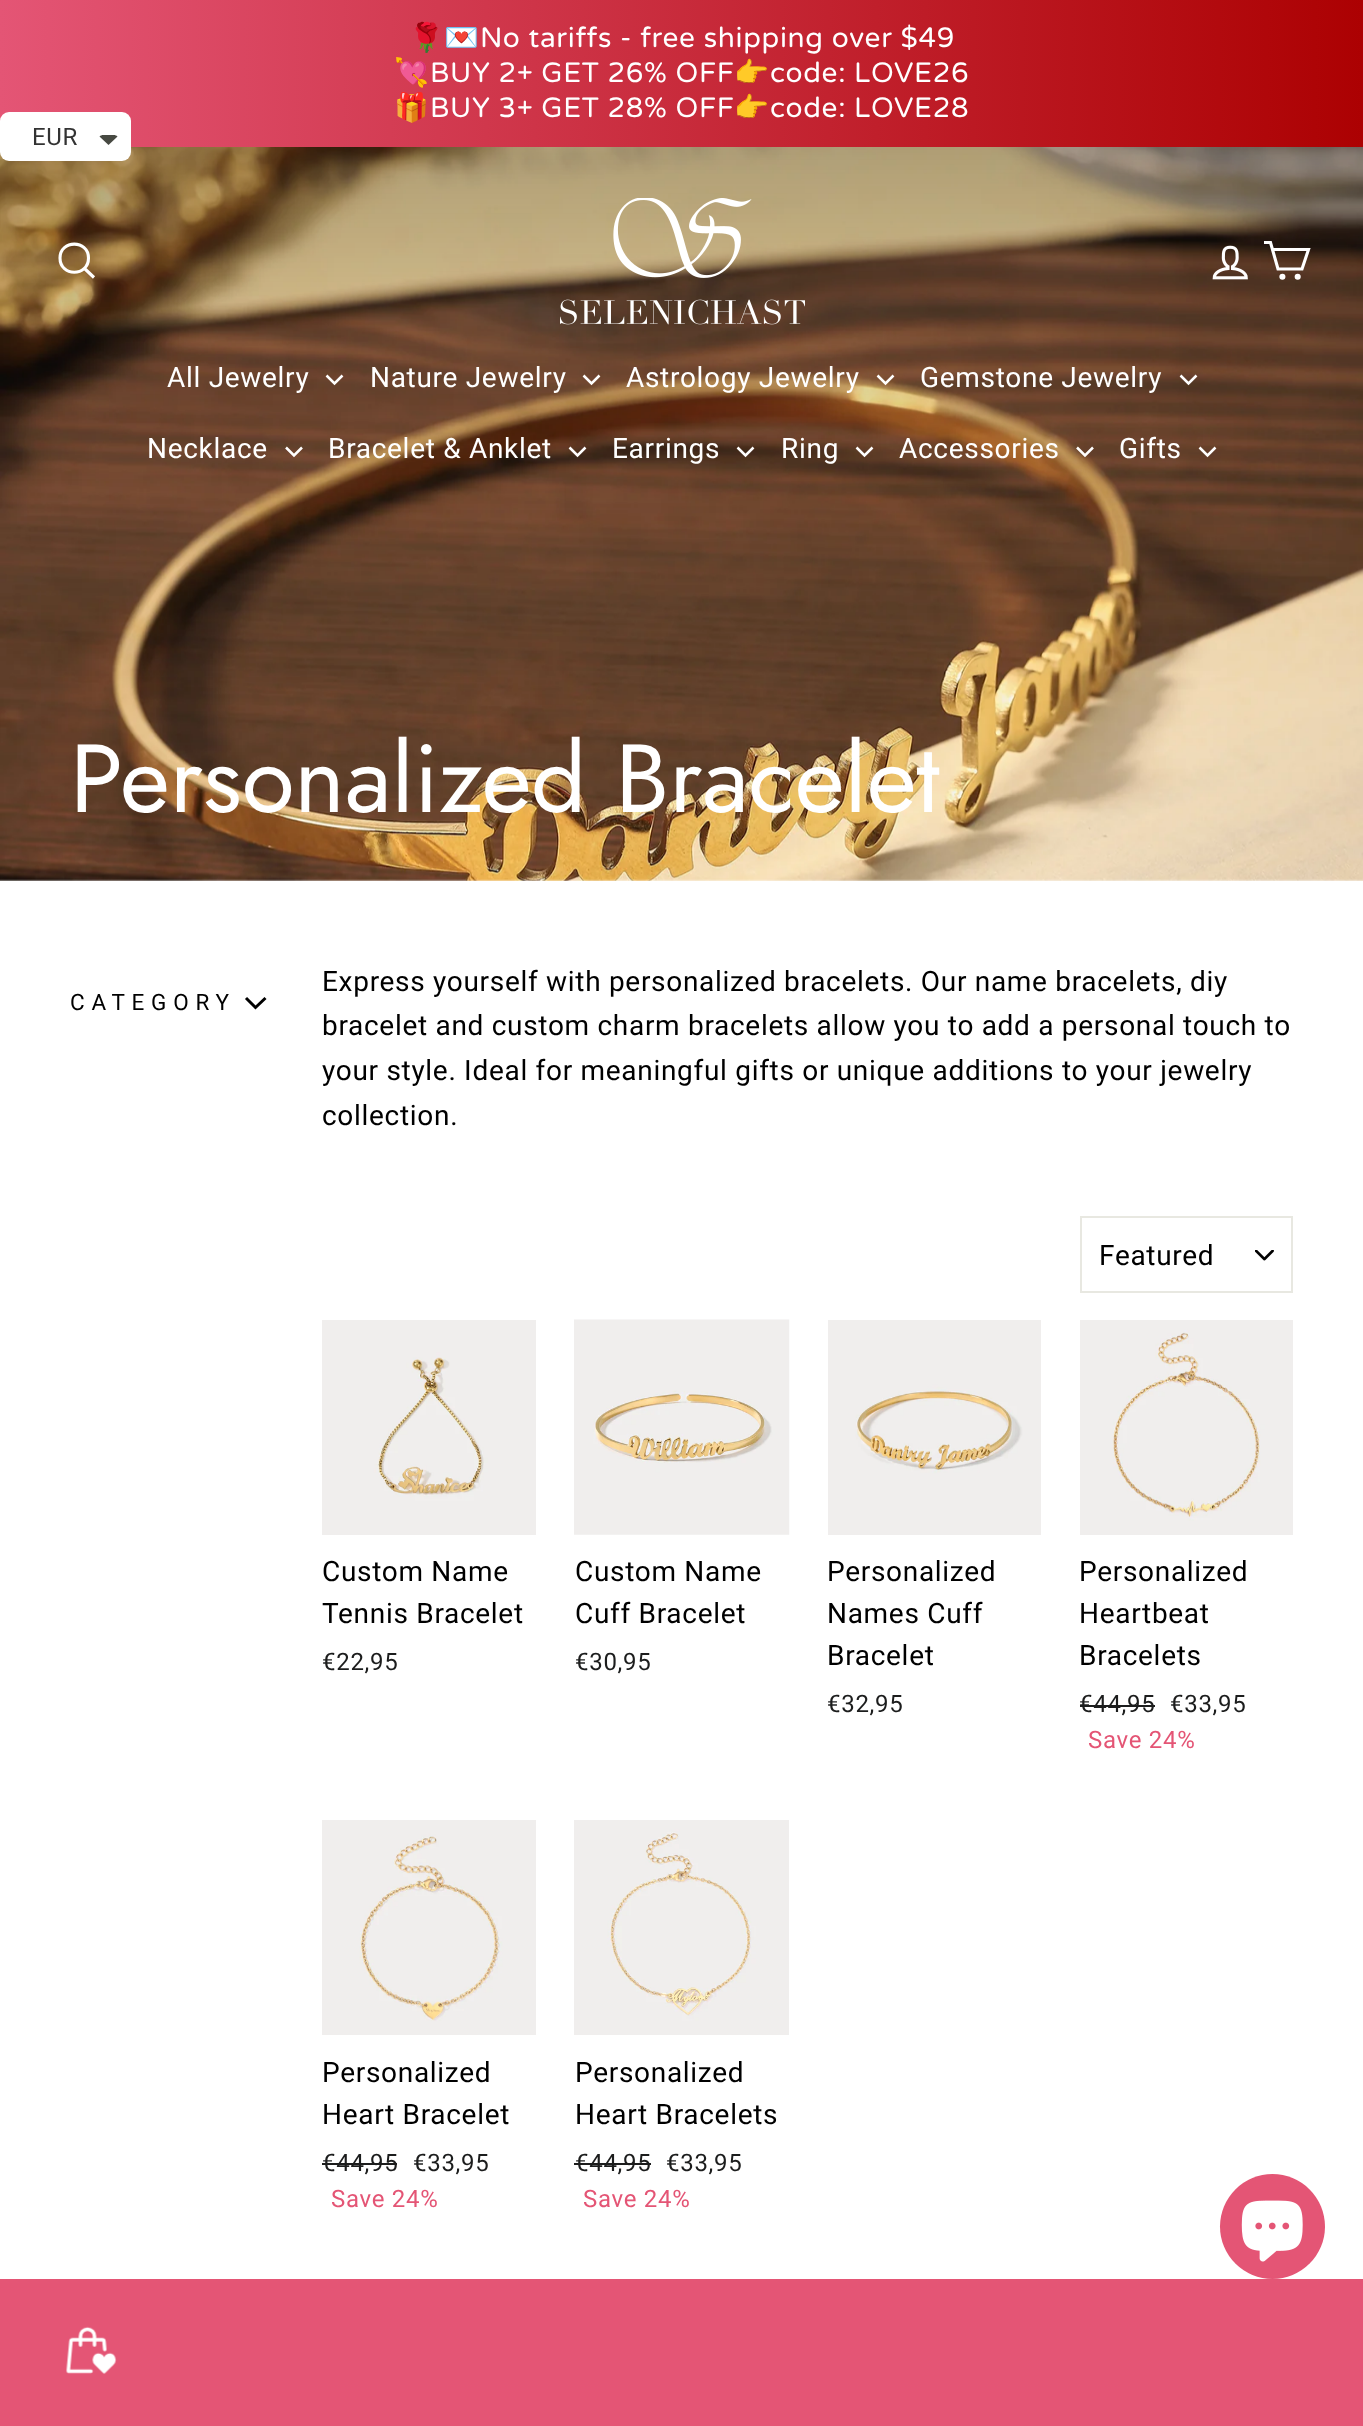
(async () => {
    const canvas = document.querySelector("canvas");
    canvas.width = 1363;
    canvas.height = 2426;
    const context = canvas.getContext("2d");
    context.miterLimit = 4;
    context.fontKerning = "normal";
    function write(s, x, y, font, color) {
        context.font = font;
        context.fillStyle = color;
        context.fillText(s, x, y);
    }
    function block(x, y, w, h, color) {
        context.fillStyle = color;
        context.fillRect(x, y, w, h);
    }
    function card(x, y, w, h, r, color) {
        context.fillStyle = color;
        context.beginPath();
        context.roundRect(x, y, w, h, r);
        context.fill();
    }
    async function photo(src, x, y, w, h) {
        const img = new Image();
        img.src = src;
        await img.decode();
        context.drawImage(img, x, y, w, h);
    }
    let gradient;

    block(0, 0, 1363, 2426, "rgb(255, 255, 255)");
    gradient = context.createLinearGradient(0, 74, 1363, 73);
    gradient.addColorStop(0, "rgb(228, 85, 117)");
    gradient.addColorStop(1, "rgb(172, 1, 2)");
    context.fillStyle = gradient;
    context.fillRect(0, 0, 1363, 147);
    await photo("media/3.png", 0, 147, 1363, 734);
    card(0, 112, 131, 49, 9, "rgb(255, 255, 255)");
    context.letterSpacing = "0.7px";
    write("EUR", 32, 145, "24px Roboto", "rgb(51, 51, 51)");
    context.fillStyle = "rgb(71, 73, 66)";
    context.beginPath();
    context.moveTo(103, 135);
    context.lineTo(114, 135);
    context.bezierCurveTo(115, 135, 116.5, 135.5, 117.5, 136.5);
    context.lineTo(108.5, 145);
    context.lineTo(99.5, 136.5);
    context.bezierCurveTo(100.5, 135.5, 102, 135, 103, 135);
    context.closePath();
    context.fill();
    write("🌹💌", 409, 47, "28px Noto Color Emoji", "rgb(255, 255, 255)");
    write("No tariffs - free shipping over $49", 480, 47, "28px Varela Round", "rgb(255, 255, 255)");
    write("💘", 394, 82, "28px Noto Color Emoji", "rgb(255, 255, 255)");
    write("BUY 2+ GET 26% OFF", 430, 82, "28px Varela Round", "rgb(255, 255, 255)");
    write("👉", 734, 82, "28px Noto Color Emoji", "rgb(255, 255, 255)");
    write("code: LOVE26", 770, 82, "28px Varela Round", "rgb(255, 255, 255)");
    write("🎁", 394, 117, "28px Noto Color Emoji", "rgb(255, 255, 255)");
    write("BUY 3+ GET 28% OFF", 430, 117, "28px Varela Round", "rgb(255, 255, 255)");
    write("👉", 734, 117, "28px Noto Color Emoji", "rgb(255, 255, 255)");
    write("code: LOVE28", 770, 117, "28px Varela Round", "rgb(255, 255, 255)");
    context.beginPath();
    context.moveTo(88.5, 258);
    context.bezierCurveTo(88.5, 277, 60, 277, 60, 258);
    context.bezierCurveTo(60, 239.5, 88.5, 239.5, 88.5, 258);
    context.closePath();
    context.moveTo(94, 277.5);
    context.lineTo(84.5, 268.5);
    context.strokeStyle = "rgb(255, 255, 255)";
    context.lineWidth = 3.1;
    context.stroke();
    await photo("media/1.png", 560, 198, 245, 127);
    await photo("media/2.png", 1212, 245, 36, 35);
    context.beginPath();
    context.moveTo(1272.5, 249.5);
    context.lineTo(1308.5, 249.5);
    context.lineTo(1302, 269);
    context.lineTo(1278, 269);
    context.lineTo(1270.5, 242.5);
    context.lineTo(1264, 242.5);
    context.stroke();
    context.beginPath();
    context.arc(1282.4, 276.8, 1.5, 0, Math.PI * 2);
    context.stroke();
    context.beginPath();
    context.arc(1297.7, 276.8, 1.5, 0, Math.PI * 2);
    context.stroke();
    write("All Jewelry", 167, 387, "28px Roboto", "rgb(255, 255, 255)");
    context.beginPath();
    context.moveTo(326.5, 375.5);
    context.lineTo(334.5, 383.5);
    context.lineTo(342.5, 375.5);
    context.lineWidth = 2.5;
    context.stroke();
    write("Nature Jewelry", 370, 387, "28px Roboto", "rgb(255, 255, 255)");
    context.beginPath();
    context.moveTo(583.5, 375.5);
    context.lineTo(591.5, 383.5);
    context.lineTo(599.5, 375.5);
    context.stroke();
    write("Astrology Jewelry", 626, 387, "28px Roboto", "rgb(255, 255, 255)");
    context.beginPath();
    context.moveTo(877.5, 375.5);
    context.lineTo(885.5, 383.5);
    context.lineTo(893.5, 375.5);
    context.stroke();
    write("Gemstone Jewelry", 920, 387, "28px Roboto", "rgb(255, 255, 255)");
    context.beginPath();
    context.moveTo(1180.5, 375.5);
    context.lineTo(1188.5, 383.5);
    context.lineTo(1196.5, 375.5);
    context.stroke();
    write("Necklace", 147, 458, "28px Roboto", "rgb(255, 255, 255)");
    context.beginPath();
    context.moveTo(286, 447.5);
    context.lineTo(294, 455.5);
    context.lineTo(302, 447.5);
    context.stroke();
    write("Bracelet & Anklet", 328, 458, "28px Roboto", "rgb(255, 255, 255)");
    context.beginPath();
    context.moveTo(569.5, 447.5);
    context.lineTo(577.5, 455.5);
    context.lineTo(585.5, 447.5);
    context.stroke();
    write("Earrings", 612, 458, "28px Roboto", "rgb(255, 255, 255)");
    context.beginPath();
    context.moveTo(737.5, 447.5);
    context.lineTo(745.5, 455.5);
    context.lineTo(753.5, 447.5);
    context.stroke();
    write("Ring", 781, 458, "28px Roboto", "rgb(255, 255, 255)");
    context.beginPath();
    context.moveTo(856.5, 447.5);
    context.lineTo(864.5, 455.5);
    context.lineTo(872.5, 447.5);
    context.stroke();
    write("Accessories", 899, 458, "28px Roboto", "rgb(255, 255, 255)");
    context.beginPath();
    context.moveTo(1077, 447.5);
    context.lineTo(1085, 455.5);
    context.lineTo(1093, 447.5);
    context.stroke();
    write("Gifts", 1119, 458, "28px Roboto", "rgb(255, 255, 255)");
    context.beginPath();
    context.moveTo(1199.5, 447.5);
    context.lineTo(1207.5, 455.5);
    context.lineTo(1215.5, 447.5);
    context.stroke();
    context.letterSpacing = "0px";
    write("Personalized Bracelet", 70, 812, "96.5px Jost", "rgb(255, 255, 255)");
    context.letterSpacing = "6.75px";
    write("CATEGORY", 70, 1010, "22.5px Roboto", "rgb(0, 0, 0)");
    context.beginPath();
    context.moveTo(246, 998);
    context.lineTo(255.5, 1007.5);
    context.lineTo(265.5, 998);
    context.strokeStyle = "rgb(0, 0, 0)";
    context.lineWidth = 3;
    context.stroke();
    context.letterSpacing = "0.7px";
    write("Express yourself with personalized bracelets. Our name bracelets, diy", 322, 991, "28px Roboto", "rgb(0, 0, 0)");
    write("bracelet and custom charm bracelets allow you to add a personal touch to", 322, 1035, "28px Roboto", "rgb(0, 0, 0)");
    write("your style. Ideal for meaningful gifts or unique additions to your jewelry", 322, 1080, "28px Roboto", "rgb(0, 0, 0)");
    write("collection.", 322, 1125, "28px Roboto", "rgb(0, 0, 0)");
    await photo("media/4.png", 1255, 1250, 19, 11);
    context.strokeStyle = "rgb(232, 232, 225)";
    context.lineWidth = 2;
    context.strokeRect(1081, 1217, 211, 75);
    write("Featured", 1099, 1265, "28px Roboto", "rgb(0, 0, 0)");
    await photo("media/5.png", 322, 1320, 214, 215);
    write("Custom Name", 322, 1581, "28px Roboto", "rgb(0, 0, 0)");
    write("Tennis Bracelet", 322, 1623, "28px Roboto", "rgb(0, 0, 0)");
    write("€22,95", 322, 1670, "24px Roboto", "rgb(28, 29, 29)");
    await photo("media/6.png", 574, 1319, 216, 216);
    write("Custom Name", 575, 1581, "28px Roboto", "rgb(0, 0, 0)");
    write("Cuff Bracelet", 575, 1623, "28px Roboto", "rgb(0, 0, 0)");
    write("€30,95", 575, 1670, "24px Roboto", "rgb(28, 29, 29)");
    await photo("media/7.png", 828, 1320, 213, 215);
    write("Personalized", 827, 1581, "28px Roboto", "rgb(0, 0, 0)");
    write("Names Cuff", 827, 1623, "28px Roboto", "rgb(0, 0, 0)");
    write("Bracelet", 827, 1665, "28px Roboto", "rgb(0, 0, 0)");
    write("€32,95", 827, 1712, "24px Roboto", "rgb(28, 29, 29)");
    await photo("media/8.png", 1080, 1320, 213, 215);
    write("Personalized", 1079, 1581, "28px Roboto", "rgb(0, 0, 0)");
    write("Heartbeat", 1079, 1623, "28px Roboto", "rgb(0, 0, 0)");
    write("Bracelets", 1079, 1665, "28px Roboto", "rgb(0, 0, 0)");
    write("€44,95", 1079, 1712, "24px Roboto", "rgb(28, 29, 29)");
    block(1080, 1705, 75, 2, "rgb(28, 29, 29)");
    write("€33,95", 1170, 1712, "24px Roboto", "rgb(28, 29, 29)");
    write("Save 24%", 1088, 1748, "24px Roboto", "rgb(228, 85, 117)");
    await photo("media/9.png", 322, 1820, 214, 215);
    write("Personalized", 322, 2082, "28px Roboto", "rgb(0, 0, 0)");
    write("Heart Bracelet", 322, 2124, "28px Roboto", "rgb(0, 0, 0)");
    write("€44,95", 322, 2171, "24px Roboto", "rgb(28, 29, 29)");
    block(322, 2163, 75, 2, "rgb(28, 29, 29)");
    write("€33,95", 413, 2171, "24px Roboto", "rgb(28, 29, 29)");
    write("Save 24%", 331, 2207, "24px Roboto", "rgb(228, 85, 117)");
    await photo("media/10.png", 574, 1820, 215, 215);
    write("Personalized", 575, 2082, "28px Roboto", "rgb(0, 0, 0)");
    write("Heart Bracelets", 575, 2124, "28px Roboto", "rgb(0, 0, 0)");
    write("€44,95", 575, 2171, "24px Roboto", "rgb(28, 29, 29)");
    block(574, 2163, 77, 2, "rgb(28, 29, 29)");
    write("€33,95", 666, 2171, "24px Roboto", "rgb(28, 29, 29)");
    write("Save 24%", 583, 2207, "24px Roboto", "rgb(228, 85, 117)");
    block(0, 2279, 1363, 147, "rgb(228, 85, 117)");
    context.beginPath();
    context.arc(1272.5, 2226.5, 52.5, 0, Math.PI * 2);
    context.fill();
    await photo("media/11.png", 1241, 2200, 62, 62);
    await photo("media/12.png", 66, 2326, 51, 48);
})();
